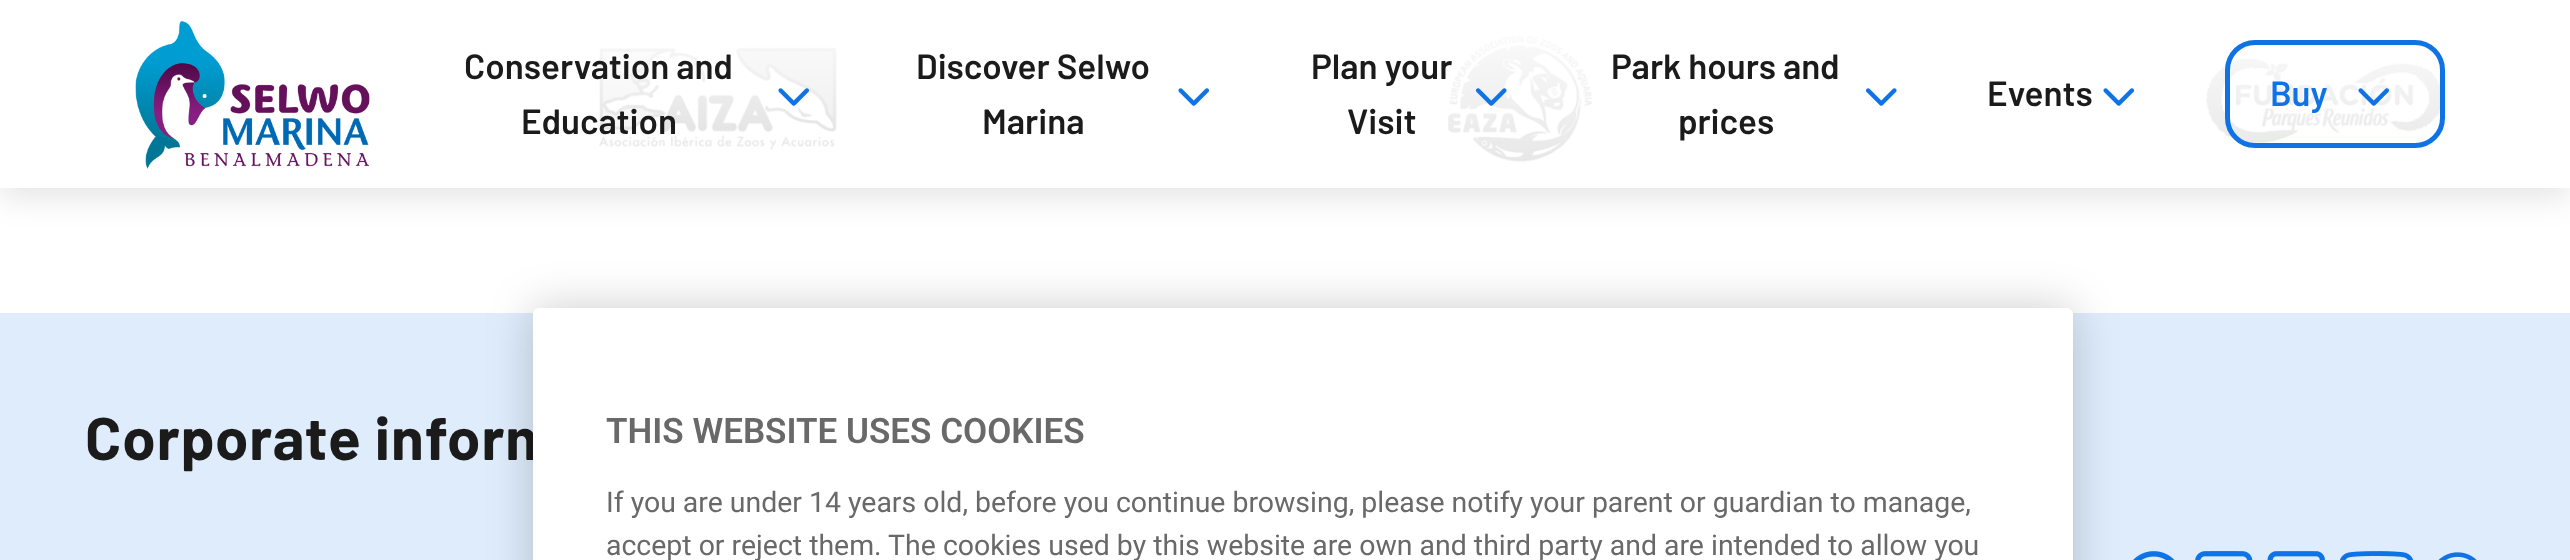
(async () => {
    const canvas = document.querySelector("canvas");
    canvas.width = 2570;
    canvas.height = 560;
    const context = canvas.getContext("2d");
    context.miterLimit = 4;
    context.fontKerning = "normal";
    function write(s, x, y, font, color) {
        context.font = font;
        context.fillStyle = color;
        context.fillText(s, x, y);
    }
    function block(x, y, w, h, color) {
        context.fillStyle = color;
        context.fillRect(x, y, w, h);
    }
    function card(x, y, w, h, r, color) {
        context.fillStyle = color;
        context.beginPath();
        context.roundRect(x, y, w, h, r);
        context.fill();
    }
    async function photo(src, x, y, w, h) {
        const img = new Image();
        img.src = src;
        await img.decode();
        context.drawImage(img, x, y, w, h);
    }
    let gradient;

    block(0, 0, 2570, 560, "rgb(255, 255, 255)");
    await photo("media/7.png", 598, 47, 239, 103);
    await photo("media/8.png", 1448, 36, 145, 126);
    await photo("media/9.png", 2206, 57, 237, 87);
    context.save();
    context.beginPath();
    context.moveTo(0, 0);
    context.lineTo(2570, 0);
    context.lineTo(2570, 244);
    context.lineTo(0, 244);
    context.closePath();
    context.moveTo(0, 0);
    context.lineTo(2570, 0);
    context.lineTo(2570, 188);
    context.lineTo(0, 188);
    context.closePath();
    context.clip("evenodd");
    context.fillStyle = "rgba(0, 0, 0, 0.1)";
    context.filter = "blur(15px)";
    context.beginPath();
    context.rect(0, 10, 2570, 188);
    context.fill();
    context.filter = "none";
    context.restore();
    gradient = context.createLinearGradient(1285, 0, 1285, 188);
    gradient.addColorStop(0, "rgb(255, 255, 255)");
    gradient.addColorStop(1, "rgba(255, 255, 255, 0.85)");
    context.fillStyle = gradient;
    context.fillRect(0, 36, 2570, 152);
    await photo("media/1.png", 135, 21, 235, 148);
    write("Conservation and", 464, 79, "600 35px Barlow", "rgb(27, 27, 27)");
    await photo("media/2.png", 778, 88, 32, 18);
    write("Education", 521, 134, "600 35px Barlow", "rgb(27, 27, 27)");
    write("Discover Selwo", 916, 79, "600 35px Barlow", "rgb(27, 27, 27)");
    await photo("media/3.png", 1178, 88, 32, 18);
    write("Marina", 982, 134, "600 35px Barlow", "rgb(27, 27, 27)");
    write("Plan your", 1311, 79, "600 35px Barlow", "rgb(27, 27, 27)");
    await photo("media/4.png", 1475, 88, 32, 18);
    write("Visit", 1347, 134, "600 35px Barlow", "rgb(27, 27, 27)");
    write("Park hours and", 1611, 79, "600 35px Barlow", "rgb(27, 27, 27)");
    await photo("media/5.png", 1865, 88, 32, 18);
    write("prices", 1678, 134, "600 35px Barlow", "rgb(27, 27, 27)");
    write("Events", 1987, 106, "600 35px Barlow", "rgb(27, 27, 27)");
    await photo("media/3.png", 2103, 88, 32, 18);
    context.beginPath();
    context.roundRect(2227.5, 42.5, 215, 103, 27.5);
    context.strokeStyle = "rgb(16, 115, 229)";
    context.lineWidth = 5;
    context.stroke();
    write("Buy", 2270, 106, "600 35px Barlow", "rgb(16, 115, 229)");
    await photo("media/6.png", 2358, 88, 32, 18);
    block(0, 313, 2570, 247, "rgb(222, 236, 251)");
    context.letterSpacing = "0.9px";
    write("Corporate inform", 85, 460, "bold 60px Barlow", "rgb(27, 27, 27)");
    await photo("media/10.png", 2133, 551, 42, 9);
    await photo("media/11.png", 2195, 551, 58, 9);
    await photo("media/12.png", 2267, 551, 58, 9);
    await photo("media/13.png", 2340, 551, 74, 9);
    await photo("media/14.png", 2438, 552, 39, 8);
    context.fillStyle = "rgba(0, 0, 0, 0.2)";
    context.filter = "blur(22.5px)";
    context.beginPath();
    context.roundRect(533, 308, 1540, 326, 6);
    context.fill();
    context.filter = "none";
    card(533, 308, 1540, 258, 6, "rgb(255, 255, 255)");
    context.letterSpacing = "0px";
    write("THIS WEBSITE USES COOKIES", 606, 443, "600 35px Roboto", "rgb(105, 105, 105)");
    write("If you are under 14 years old, before you continue browsing, please notify your parent or guardian to manage,", 606, 512, "28.45px Roboto", "rgb(105, 105, 105)");
    write("accept or reject them. The cookies used by this website are own and third party and are intended to allow you", 606, 555, "28.45px Roboto", "rgb(105, 105, 105)");
})();
